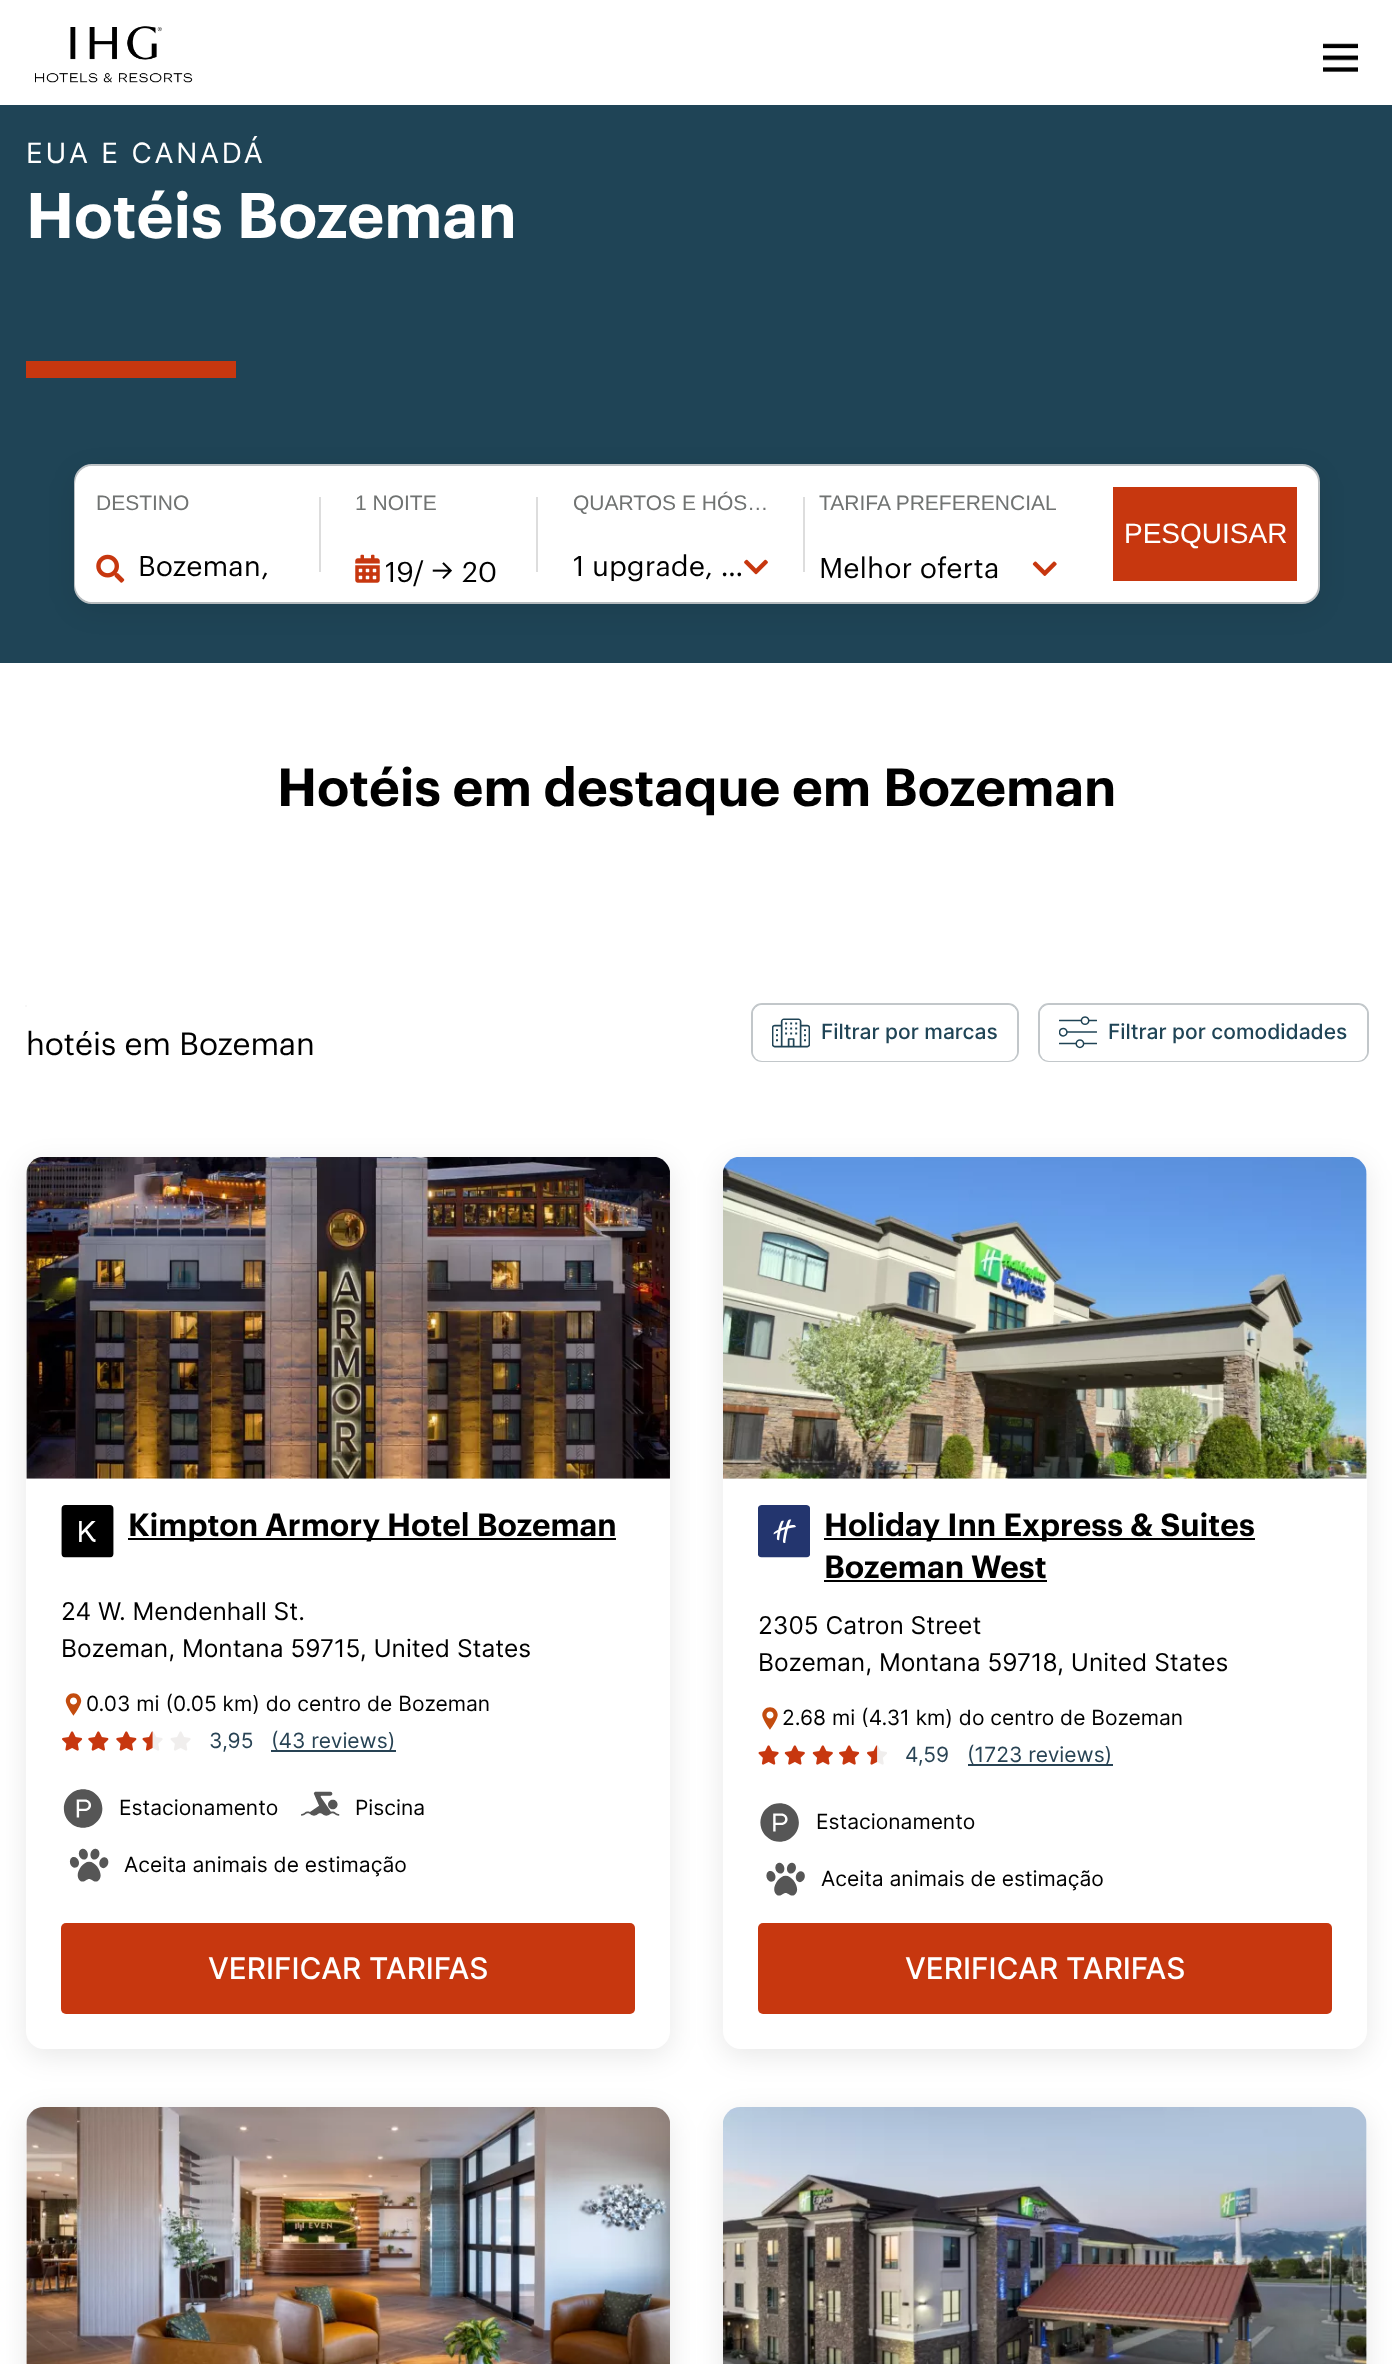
(async () => {
    const canvas = document.querySelector("canvas");
    canvas.width = 1392;
    canvas.height = 2364;
    const context = canvas.getContext("2d");
    context.miterLimit = 4;
    context.fontKerning = "normal";
    function write(s, x, y, font, color) {
        context.font = font;
        context.fillStyle = color;
        context.fillText(s, x, y);
    }
    function block(x, y, w, h, color) {
        context.fillStyle = color;
        context.fillRect(x, y, w, h);
    }
    function card(x, y, w, h, r, color) {
        context.fillStyle = color;
        context.beginPath();
        context.roundRect(x, y, w, h, r);
        context.fill();
    }
    async function photo(src, x, y, w, h) {
        const img = new Image();
        img.src = src;
        await img.decode();
        context.drawImage(img, x, y, w, h);
    }

    block(0, 0, 1392, 2364, "rgb(255, 255, 255)");
    await photo("media/1.png", 35, 26, 158, 57);
    await photo("media/2.png", 1323, 43, 35, 29);
    block(0, 105, 1392, 558, "rgb(31, 68, 86)");
    context.letterSpacing = "2.75px";
    write("EUA E CANADÁ", 26, 163, "28px Inter", "rgb(255, 255, 255)");
    context.letterSpacing = "0px";
    write("Hotéis Bozeman", 26, 238, "600 63px Graphik", "rgb(255, 255, 255)");
    block(26, 361, 210, 17, "rgb(199, 55, 15)");
    context.fillStyle = "rgb(255, 255, 255)";
    context.beginPath();
    context.roundRect(75, 465, 1244, 138, 17);
    context.fill();
    context.strokeStyle = "rgb(194, 199, 202)";
    context.lineWidth = 2;
    context.stroke();
    context.fillStyle = "rgba(0, 0, 0, 0.09)";
    context.filter = "blur(14px)";
    context.beginPath();
    context.roundRect(75, 473, 1243, 136, 18);
    context.fill();
    context.filter = "none";
    card(75, 466, 1243, 136, 18, "rgb(255, 255, 255)");
    write("DESTINO", 96, 510, "21px Liberation Sans", "rgb(112, 115, 114)");
    await photo("media/3.png", 96, 554, 29, 29);
    write("Bozeman,", 138, 576, "28px 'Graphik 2'", "rgb(0, 0, 0)");
    block(319, 497, 2, 75, "rgb(221, 221, 221)");
    write("1 NOITE", 355, 510, "21px Liberation Sans", "rgb(112, 115, 114)");
    await photo("media/4.png", 355, 554, 25, 29);
    write("19/", 385, 582, "28px 'Graphik 2'", "rgb(0, 0, 0)");
    await photo("media/5.png", 432, 562, 20, 17);
    write("20", 462, 582, "28px 'Graphik 2'", "rgb(0, 0, 0)");
    block(536, 497, 2, 75, "rgb(221, 221, 221)");
    write("QUARTOS E HÓS…", 573, 510, "21px Liberation Sans", "rgb(112, 115, 114)");
    write("1 upgrade, …", 573, 576, "28px 'Graphik 2'", "rgb(0, 0, 0)");
    await photo("media/6.png", 744, 559, 24, 16);
    block(803, 497, 2, 75, "rgb(221, 221, 221)");
    write("TARIFA PREFERENCIAL", 819, 510, "21px Liberation Sans", "rgb(112, 115, 114)");
    write("Melhor oferta", 819, 578, "28px 'Graphik 2'", "rgb(0, 0, 0)");
    await photo("media/7.png", 1032, 561, 25, 15);
    block(1113, 487, 184, 94, "rgb(199, 55, 15)");
    write("PESQUISAR", 1124, 543, "28px Liberation Sans", "rgb(255, 255, 255)");
    write("Hotéis em destaque em Bozeman", 277, 806, "600 52.5px Graphik", "rgb(0, 0, 0)");
    context.fillStyle = "rgb(245, 245, 245)";
    context.beginPath();
    context.arc(26, 1006, 1, 0, Math.PI * 2);
    context.fill();
    write("hotéis em Bozeman", 26, 1055, "31.5px Graphik", "rgb(0, 0, 0)");
    context.beginPath();
    context.roundRect(752, 1004, 266, 57, 10);
    context.stroke();
    card(753, 1005, 264, 56, 9, "rgb(255, 255, 255)");
    await photo("media/8.png", 772, 1018, 38, 30);
    write("Filtrar por marcas", 821, 1039, "500 21px Inter", "rgb(31, 68, 86)");
    context.beginPath();
    context.roundRect(1039, 1004, 329, 57, 10);
    context.stroke();
    card(1040, 1005, 327, 56, 9, "rgb(255, 255, 255)");
    await photo("media/9.png", 1059, 1016, 38, 33);
    write("Filtrar por comodidades", 1108, 1039, "500 21px Inter", "rgb(31, 68, 86)");
    context.fillStyle = "rgba(0, 0, 0, 0.09)";
    context.filter = "blur(14px)";
    context.beginPath();
    context.roundRect(26, 1164, 644, 892, 18);
    context.fill();
    context.filter = "none";
    card(26, 1157, 644, 892, 18, "rgb(255, 255, 255)");
    await photo("media/10.png", 26, 1157, 644, 322);
    await photo("media/11.png", 61, 1505, 53, 53);
    block(128, 1538, 488, 2, "rgb(0, 0, 0)");
    write("Kimpton Armory Hotel Bozeman", 128, 1536, "600 31.5px Graphik", "rgb(0, 0, 0)");
    write("24 W. Mendenhall St.", 61, 1620, "24.5px Inter", "rgb(0, 0, 0)");
    write("Bozeman, Montana 59715, United States", 61, 1657, "24.5px Inter", "rgb(0, 0, 0)");
    await photo("media/12.png", 65, 1693, 17, 23);
    write("0.03 mi (0.05 km) do centro de Bozeman", 86, 1711, "21px Inter", "rgb(0, 0, 0)");
    await photo("media/13.png", 62, 1731, 21, 20);
    await photo("media/14.png", 88, 1731, 21, 20);
    await photo("media/14.png", 116, 1731, 21, 20);
    await photo("media/15.png", 142, 1731, 21, 20);
    await photo("media/16.png", 142, 1731, 11, 20);
    await photo("media/15.png", 170, 1731, 21, 20);
    write("3,95", 209, 1748, "21px Inter", "rgb(40, 67, 84)");
    block(271, 1750, 125, 2, "rgb(40, 67, 84)");
    write("(43 reviews)", 271, 1748, "21px Inter", "rgb(40, 67, 84)");
    await photo("media/17.png", 63, 1789, 40, 39);
    write("Estacionamento", 119, 1815, "21px Inter", "rgb(0, 0, 0)");
    await photo("media/18.png", 301, 1791, 39, 25);
    write("Piscina", 355, 1815, "21px Inter", "rgb(0, 0, 0)");
    await photo("media/19.png", 69, 1848, 40, 34);
    write("Aceita animais de estimação", 124, 1872, "21px Inter", "rgb(0, 0, 0)");
    card(61, 1923, 574, 91, 5, "rgb(199, 55, 15)");
    write("VERIFICAR TARIFAS", 208, 1979, "500 29.75px Inter", "rgb(255, 255, 255)");
    context.fillStyle = "rgba(0, 0, 0, 0.09)";
    context.filter = "blur(14px)";
    context.beginPath();
    context.roundRect(723, 1164, 644, 892, 18);
    context.fill();
    context.filter = "none";
    card(723, 1157, 644, 892, 18, "rgb(255, 255, 255)");
    await photo("media/20.png", 723, 1157, 644, 322);
    await photo("media/21.png", 758, 1505, 52, 53);
    block(824, 1538, 431, 2, "rgb(0, 0, 0)");
    write("Holiday Inn Express & Suites", 824, 1536, "600 31.5px Graphik", "rgb(0, 0, 0)");
    write("Bozeman West", 824, 1578, "600 31.5px Graphik", "rgb(0, 0, 0)");
    block(824, 1580, 223, 2, "rgb(0, 0, 0)");
    write("2305 Catron Street", 758, 1634, "24.5px Inter", "rgb(0, 0, 0)");
    write("Bozeman, Montana 59718, United States", 758, 1671, "24.5px Inter", "rgb(0, 0, 0)");
    await photo("media/22.png", 762, 1707, 16, 23);
    write("2.68 mi (4.31 km) do centro de Bozeman", 782, 1725, "21px Inter", "rgb(0, 0, 0)");
    await photo("media/23.png", 758, 1745, 21, 20);
    await photo("media/24.png", 784, 1745, 21, 20);
    await photo("media/24.png", 812, 1745, 21, 20);
    await photo("media/13.png", 839, 1745, 21, 20);
    await photo("media/25.png", 867, 1745, 20, 20);
    await photo("media/26.png", 867, 1745, 11, 20);
    write("4,59", 905, 1762, "21px Inter", "rgb(40, 67, 84)");
    block(968, 1764, 145, 2, "rgb(40, 67, 84)");
    write("(1723 reviews)", 967, 1762, "21px Inter", "rgb(40, 67, 84)");
    await photo("media/27.png", 760, 1803, 39, 39);
    write("Estacionamento", 816, 1829, "21px Inter", "rgb(0, 0, 0)");
    await photo("media/28.png", 766, 1862, 39, 34);
    write("Aceita animais de estimação", 821, 1886, "21px Inter", "rgb(0, 0, 0)");
    card(758, 1923, 574, 91, 5, "rgb(199, 55, 15)");
    write("VERIFICAR TARIFAS", 905, 1979, "500 29.75px Inter", "rgb(255, 255, 255)");
    context.fillStyle = "rgba(0, 0, 0, 0.09)";
    context.filter = "blur(14px)";
    context.beginPath();
    context.roundRect(26, 2114, 644, 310, 18);
    context.fill();
    context.filter = "none";
    card(26, 2107, 644, 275, 18, "rgb(255, 255, 255)");
    await photo("media/29.png", 26, 2107, 644, 257);
    context.fillStyle = "rgba(0, 0, 0, 0.09)";
    context.filter = "blur(14px)";
    context.beginPath();
    context.roundRect(723, 2114, 644, 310, 18);
    context.fill();
    context.filter = "none";
    card(723, 2107, 644, 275, 18, "rgb(255, 255, 255)");
    await photo("media/30.png", 723, 2107, 644, 257);
})();
